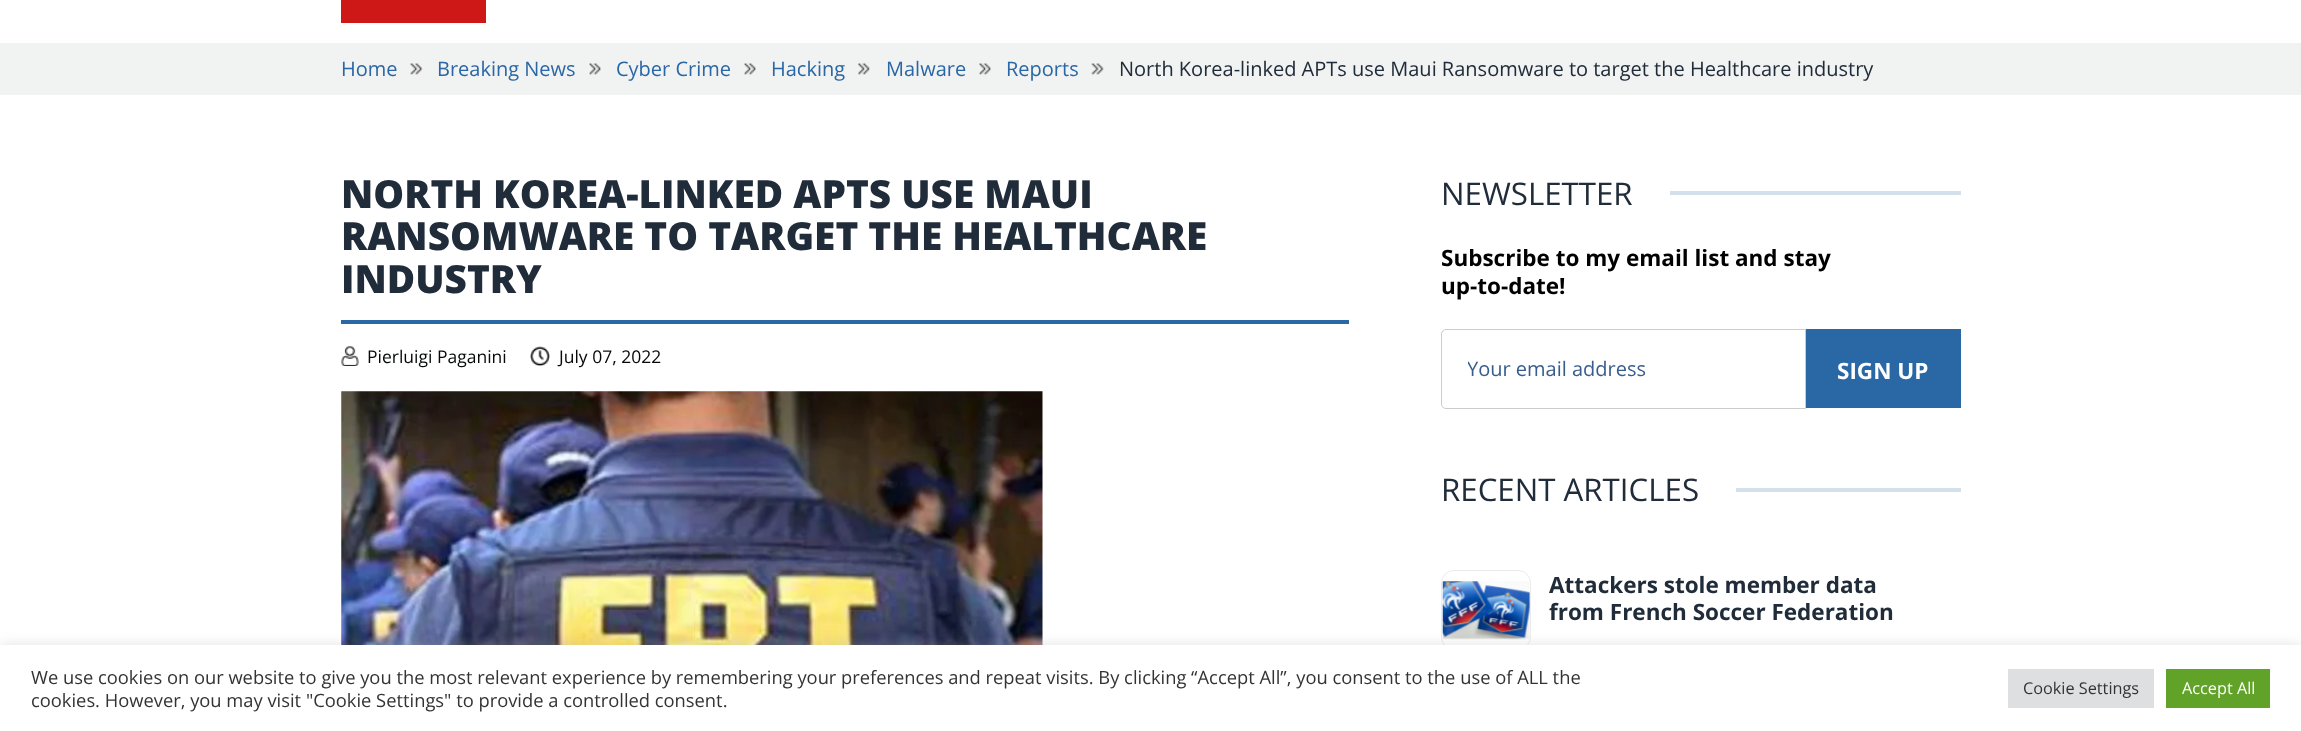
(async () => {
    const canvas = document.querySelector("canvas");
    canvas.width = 2301;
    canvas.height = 731;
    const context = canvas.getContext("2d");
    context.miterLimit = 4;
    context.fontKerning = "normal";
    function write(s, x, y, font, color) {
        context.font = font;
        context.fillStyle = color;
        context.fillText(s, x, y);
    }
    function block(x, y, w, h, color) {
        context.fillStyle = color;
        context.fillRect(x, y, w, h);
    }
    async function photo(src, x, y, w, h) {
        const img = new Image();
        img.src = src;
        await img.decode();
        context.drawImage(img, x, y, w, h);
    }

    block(0, 0, 2301, 731, "rgb(255, 255, 255)");
    block(341, 0, 145, 23, "rgb(206, 23, 23)");
    block(0, 43, 2301, 52, "rgb(241, 242, 242)");
    write("Home", 341, 76, "20px Open Sans", "rgb(41, 103, 165)");
    await photo("media/1.png", 410, 63, 13, 12);
    write("Breaking News", 437, 76, "20px Open Sans", "rgb(41, 103, 165)");
    await photo("media/2.png", 589, 63, 12, 12);
    write("Cyber Crime", 616, 76, "20px Open Sans", "rgb(41, 103, 165)");
    await photo("media/3.png", 744, 63, 12, 12);
    write("Hacking", 771, 76, "20px Open Sans", "rgb(41, 103, 165)");
    await photo("media/4.png", 858, 63, 12, 12);
    write("Malware", 886, 76, "20px Open Sans", "rgb(41, 103, 165)");
    await photo("media/3.png", 979, 63, 12, 12);
    write("Reports", 1006, 76, "20px Open Sans", "rgb(41, 103, 165)");
    await photo("media/5.png", 1091, 63, 13, 12);
    write("North Korea-linked APTs use Maui Ransomware to target the Healthcare industry", 1119, 76, "20px Open Sans", "rgb(32, 44, 57)");
    write("NORTH KOREA-LINKED APTS USE MAUI", 341, 208, "800 38.75px Open Sans", "rgb(32, 44, 57)");
    write("RANSOMWARE TO TARGET THE HEALTHCARE", 341, 250, "800 38.75px Open Sans", "rgb(32, 44, 57)");
    write("INDUSTRY", 341, 293, "800 38.75px Open Sans", "rgb(32, 44, 57)");
    block(341, 320, 1008, 4, "rgb(41, 103, 165)");
    await photo("media/6.png", 341, 346, 18, 20);
    write("Pierluigi Paganini", 367, 363, "17.5px Open Sans", "rgb(7, 9, 9)");
    await photo("media/7.png", 530, 346, 20, 20);
    write("July 07, 2022", 559, 363, "17.5px Open Sans", "rgb(7, 9, 9)");
    await photo("media/8.png", 341, 391, 702, 254);
    write("NEWSLETTER", 1441, 205, "31.25px Open Sans", "rgb(32, 44, 57)");
    block(1670, 191, 291, 4, "rgb(212, 225, 237)");
    write("Subscribe to my email list and stay", 1441, 266, "bold 22.5px Open Sans", "rgb(0, 0, 0)");
    write("up-to-date!", 1441, 294, "bold 22.5px Open Sans", "rgb(0, 0, 0)");
    context.beginPath();
    context.roundRect(1441.5, 329.5, 364, 79, [4.5, 0, 0, 4.5]);
    context.strokeStyle = "rgb(204, 204, 204)";
    context.stroke();
    context.save();
    context.beginPath();
    context.rect(1468, 355, 312, 28);
    context.clip();
    write("Your email address", 1467, 376, "20px Open Sans", "rgb(56, 92, 141)");
    context.restore();
    block(1806, 329, 155, 79, "rgb(41, 103, 165)");
    write("SIGN UP", 1837, 379, "bold 22.5px Open Sans", "rgb(255, 255, 255)");
    write("RECENT ARTICLES", 1441, 501, "31.25px Open Sans", "rgb(32, 44, 57)");
    block(1736, 488, 225, 4, "rgb(212, 225, 237)");
    context.beginPath();
    context.roundRect(1441.5, 570.5, 89, 79, 12.5);
    context.strokeStyle = "rgb(235, 235, 235)";
    context.stroke();
    await photo("media/9.png", 1442, 581, 88, 59);
    write("Attackers stole member data", 1549, 593, "bold 22.5px Open Sans", "rgb(32, 44, 57)");
    write("from French Soccer Federation", 1549, 620, "bold 22.5px Open Sans", "rgb(32, 44, 57)");
    context.fillStyle = "rgba(172, 171, 171, 0.3)";
    context.filter = "blur(6px)";
    context.beginPath();
    context.rect(0, 644, 2301, 86);
    context.fill();
    context.filter = "none";
    block(0, 645, 2301, 86, "rgb(255, 255, 255)");
    write("We use cookies on our website to give you the most relevant experience by remembering your preferences and repeat visits. By clicking “Accept All”, you consent to the use of ALL the", 31, 684, "18.33px Open Sans", "rgb(51, 51, 51)");
    write("cookies. However, you may visit \"Cookie Settings\" to provide a controlled consent.", 31, 707, "18.33px Open Sans", "rgb(51, 51, 51)");
    block(2008, 669, 146, 39, "rgb(222, 223, 224)");
    write("Cookie Settings", 2023, 694, "16.25px Open Sans", "rgb(51, 51, 51)");
    block(2166, 669, 104, 39, "rgb(97, 162, 41)");
    write("Accept All", 2182, 694, "16.25px Open Sans", "rgb(255, 255, 255)");
})();
